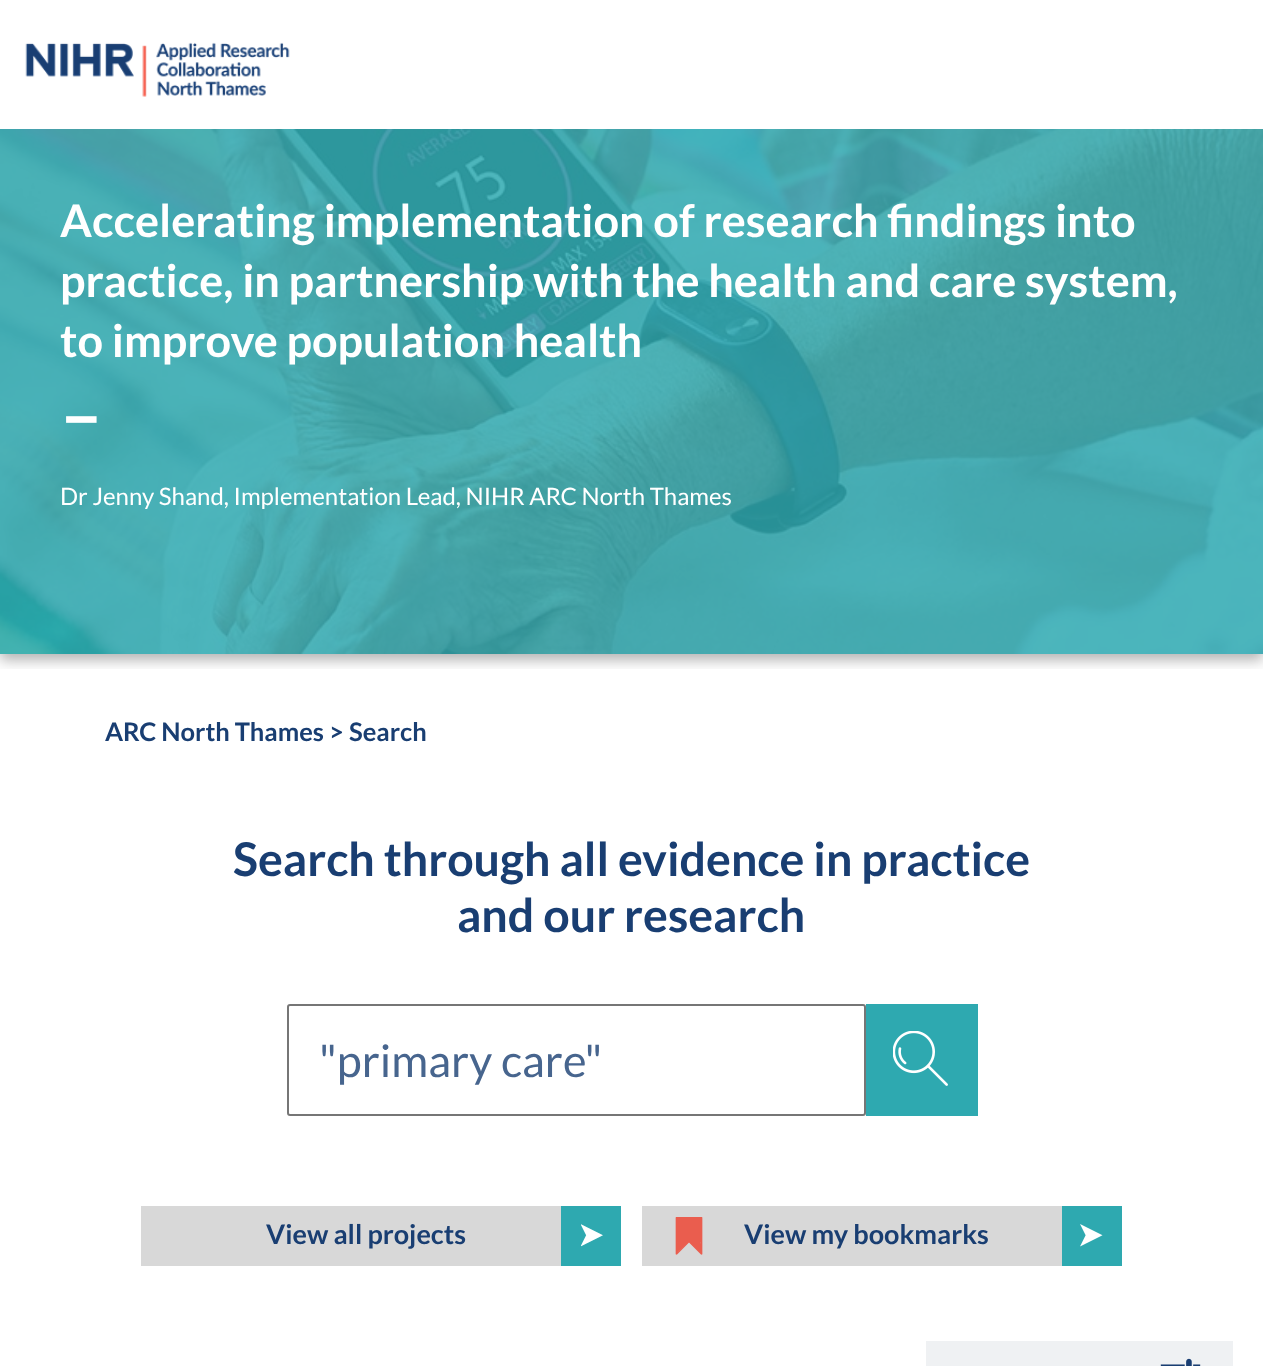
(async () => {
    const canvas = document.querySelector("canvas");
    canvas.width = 1263;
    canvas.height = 1366;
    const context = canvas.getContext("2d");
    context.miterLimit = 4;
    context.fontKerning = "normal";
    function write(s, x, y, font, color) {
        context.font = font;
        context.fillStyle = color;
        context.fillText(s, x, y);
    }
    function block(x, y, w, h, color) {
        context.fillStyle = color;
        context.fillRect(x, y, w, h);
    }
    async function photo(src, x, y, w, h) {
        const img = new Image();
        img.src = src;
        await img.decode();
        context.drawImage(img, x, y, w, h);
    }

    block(0, 0, 1263, 1366, "rgb(255, 255, 255)");
    await photo("media/1.png", 25, 42, 265, 55);
    context.save();
    context.beginPath();
    context.rect(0, 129, 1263, 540);
    context.clip();
    context.fillStyle = "rgba(0, 0, 0, 0.3)";
    context.filter = "blur(7px)";
    context.beginPath();
    context.rect(0, 135, 1263, 525);
    context.fill();
    context.filter = "none";
    context.restore();
    await photo("media/2.png", 0, 129, 1263, 525);
    write("Accelerating implementation of research findings into", 60, 237, "bold 45px Lato", "rgb(255, 255, 255)");
    write("practice, in partnership with the health and care system,", 60, 297, "bold 45px Lato", "rgb(255, 255, 255)");
    write("to improve population health", 60, 357, "bold 45px Lato", "rgb(255, 255, 255)");
    write("–", 60, 442, "bold 75px Lato", "rgb(255, 255, 255)");
    write("Dr Jenny Shand, Implementation Lead, NIHR ARC North Thames", 60, 505, "24px Lato", "rgb(255, 255, 255)");
    write("ARC North Thames >", 105, 741, "bold 25.5px Lato", "rgb(25, 62, 114)");
    write("Search", 349, 741, "bold 25.5px Lato", "rgb(25, 62, 114)");
    write("Search through all evidence in practice", 233, 876, "bold 46.5px Lato", "rgb(25, 62, 114)");
    write("and our research", 457, 932, "bold 46.5px Lato", "rgb(25, 62, 114)");
    context.beginPath();
    context.roundRect(288, 1005, 577, 110, 2);
    context.strokeStyle = "rgb(118, 118, 118)";
    context.lineWidth = 2;
    context.stroke();
    write("\"primary care\"", 319, 1077, "45px Lato", "rgb(71, 101, 142)");
    block(866, 1004, 112, 112, "rgb(46, 169, 176)");
    await photo("media/3.png", 893, 1031, 55, 55);
    block(141, 1206, 420, 60, "rgb(216, 216, 216)");
    write("View all projects", 266, 1244, "bold 27px Lato", "rgb(25, 62, 114)");
    block(561, 1206, 60, 60, "rgb(46, 169, 176)");
    await photo("media/4.png", 581, 1224, 22, 23);
    block(642, 1206, 420, 60, "rgb(216, 216, 216)");
    await photo("media/5.png", 675, 1217, 28, 38);
    write("View my bookmarks", 744, 1244, "bold 27px Lato", "rgb(25, 62, 114)");
    block(1062, 1206, 60, 60, "rgb(46, 169, 176)");
    await photo("media/6.png", 1080, 1224, 23, 23);
    block(926, 1341, 307, 25, "rgb(239, 241, 243)");
    await photo("media/7.png", 1160, 1358, 41, 8);
})();
